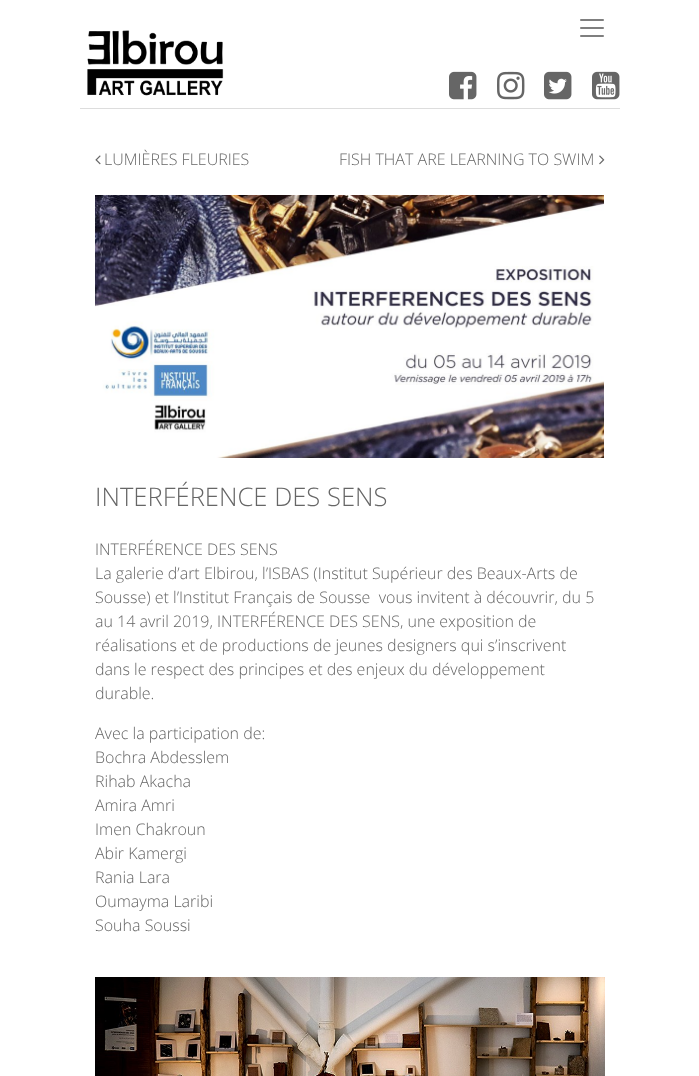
(async () => {
    const canvas = document.querySelector("canvas");
    canvas.width = 699;
    canvas.height = 1076;
    const context = canvas.getContext("2d");
    context.miterLimit = 4;
    context.fontKerning = "normal";
    function write(s, x, y, font, color) {
        context.font = font;
        context.fillStyle = color;
        context.fillText(s, x, y);
    }
    function block(x, y, w, h, color) {
        context.fillStyle = color;
        context.fillRect(x, y, w, h);
    }
    async function photo(src, x, y, w, h) {
        const img = new Image();
        img.src = src;
        await img.decode();
        context.drawImage(img, x, y, w, h);
    }

    block(0, 0, 699, 1076, "rgb(255, 255, 255)");
    block(80, 108, 540, 1, "rgb(221, 221, 221)");
    await photo("media/1.png", 580, 19, 24, 18);
    await photo("media/2.png", 87, 30, 137, 66);
    await photo("media/3.png", 449, 71, 28, 29);
    await photo("media/4.png", 497, 71, 28, 29);
    await photo("media/5.png", 544, 71, 28, 29);
    await photo("media/6.png", 592, 71, 28, 29);
    await photo("media/7.png", 95, 155, 6, 10);
    write("LUMIÈRES FLEURIES", 104, 165, "300 16px Open Sans", "rgb(102, 102, 102)");
    write("FISH THAT ARE LEARNING TO SWIM", 339, 165, "300 16px Open Sans", "rgb(102, 102, 102)");
    await photo("media/8.png", 599, 155, 6, 10);
    await photo("media/9.png", 95, 195, 509, 263);
    write("INTERFÉRENCE DES SENS", 95, 506, "300 25.6px Open Sans", "rgb(102, 102, 102)");
    write("INTERFÉRENCE DES SENS", 95, 555, "300 16px Open Sans", "rgb(102, 102, 102)");
    write("La galerie d’art Elbirou, l’ISBAS (Institut Supérieur des Beaux-Arts de", 95, 579, "300 16px Open Sans", "rgb(102, 102, 102)");
    write("Sousse) et l’Institut Français de Sousse  vous invitent à découvrir, du 5", 95, 603, "300 16px Open Sans", "rgb(102, 102, 102)");
    write("au 14 avril 2019, INTERFÉRENCE DES SENS, une exposition de", 95, 627, "300 16px Open Sans", "rgb(102, 102, 102)");
    write("réalisations et de productions de jeunes designers qui s’inscrivent", 95, 651, "300 16px Open Sans", "rgb(102, 102, 102)");
    write("dans le respect des principes et des enjeux du développement", 95, 675, "300 16px Open Sans", "rgb(102, 102, 102)");
    write("durable.", 95, 699, "300 16px Open Sans", "rgb(102, 102, 102)");
    write("Avec la participation de:", 95, 739, "300 16px Open Sans", "rgb(102, 102, 102)");
    write("Bochra Abdesslem", 95, 763, "300 16px Open Sans", "rgb(102, 102, 102)");
    write("Rihab Akacha", 95, 787, "300 16px Open Sans", "rgb(102, 102, 102)");
    write("Amira Amri", 95, 811, "300 16px Open Sans", "rgb(102, 102, 102)");
    write("Imen Chakroun", 95, 835, "300 16px Open Sans", "rgb(102, 102, 102)");
    write("Abir Kamergi", 95, 859, "300 16px Open Sans", "rgb(102, 102, 102)");
    write("Rania Lara", 95, 883, "300 16px Open Sans", "rgb(102, 102, 102)");
    write("Oumayma Laribi", 95, 907, "300 16px Open Sans", "rgb(102, 102, 102)");
    write("Souha Soussi", 95, 931, "300 16px Open Sans", "rgb(102, 102, 102)");
    await photo("media/10.png", 95, 977, 510, 99);
})();
